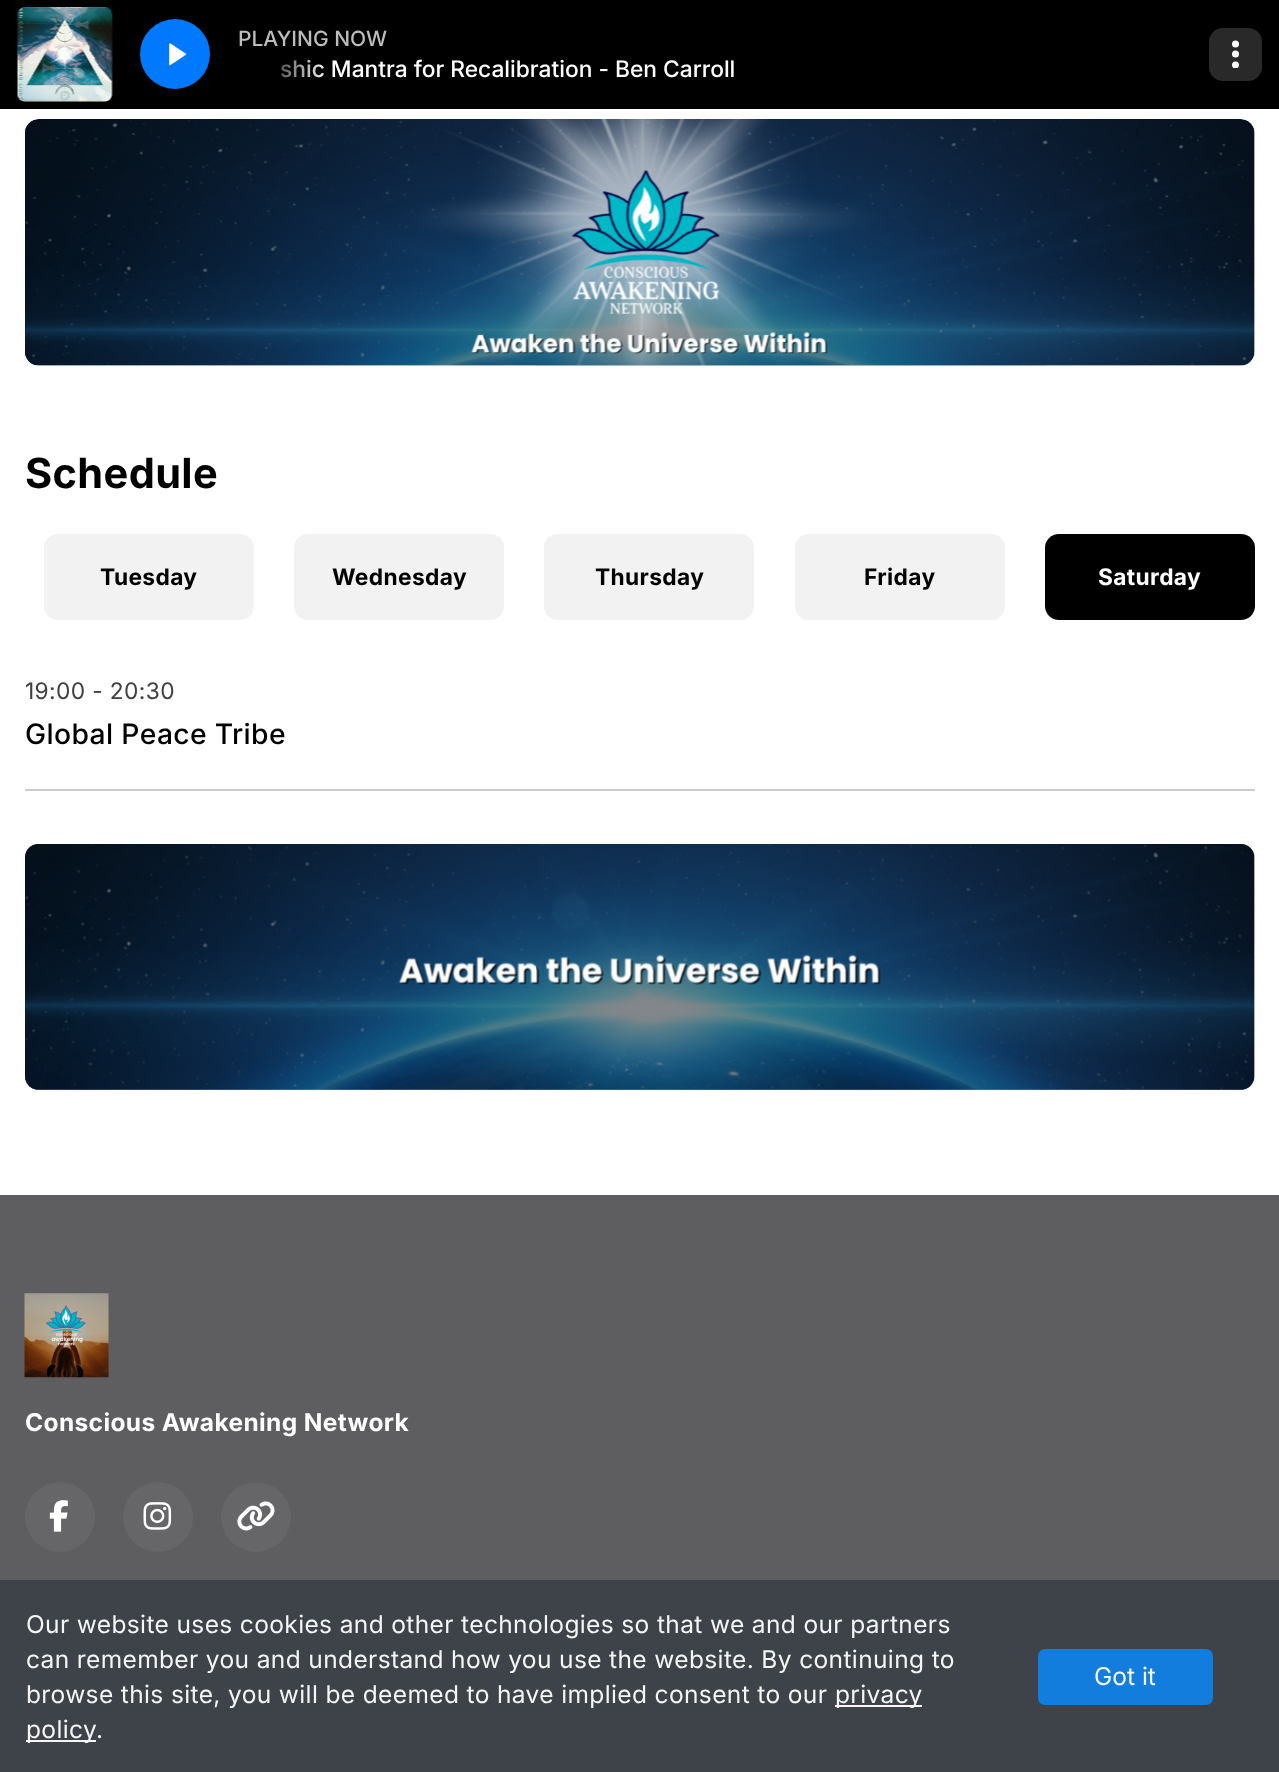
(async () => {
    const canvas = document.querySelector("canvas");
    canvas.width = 1279;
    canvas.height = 1772;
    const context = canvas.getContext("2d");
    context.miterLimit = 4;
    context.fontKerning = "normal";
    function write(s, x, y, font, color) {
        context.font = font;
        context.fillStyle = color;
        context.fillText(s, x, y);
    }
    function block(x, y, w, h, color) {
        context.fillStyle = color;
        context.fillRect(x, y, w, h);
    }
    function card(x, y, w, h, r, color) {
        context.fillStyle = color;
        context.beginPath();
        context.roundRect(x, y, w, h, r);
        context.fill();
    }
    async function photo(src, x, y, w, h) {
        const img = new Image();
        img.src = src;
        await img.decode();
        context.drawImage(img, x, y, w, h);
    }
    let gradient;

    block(0, 0, 1279, 1772, "rgb(255, 255, 255)");
    block(0, 0, 1279, 109, "rgb(0, 0, 0)");
    await photo("media/1.png", 17, 7, 96, 95);
    context.fillStyle = "rgb(0, 121, 255)";
    context.beginPath();
    context.arc(175, 54, 35, 0, Math.PI * 2);
    context.fill();
    await photo("media/2.png", 169, 43, 17, 23);
    write("PLAYING NOW", 238, 46, "500 21px Inter", "rgb(189, 189, 189)");
    write("shic Mantra for Recalibration - Ben Carroll", 280, 77, "500 22.75px Inter", "rgb(255, 255, 255)");
    gradient = context.createLinearGradient(238, 69, 327, 69);
    gradient.addColorStop(0.2, "rgb(0, 0, 0)");
    gradient.addColorStop(1, "rgba(0, 0, 0, 0)");
    context.fillStyle = gradient;
    context.fillRect(280, 59, 44, 19);
    card(1209, 28, 53, 53, 14, "rgb(41, 41, 41)");
    context.save();
    context.beginPath();
    context.rect(1232, 40, 7, 28);
    context.clip();
    context.fillStyle = "rgb(255, 255, 255)";
    context.beginPath();
    context.arc(1235.5, 65, 3.5, 0, Math.PI * 2);
    context.fill();
    context.restore();
    context.fillStyle = "rgb(255, 255, 255)";
    context.beginPath();
    context.arc(1235.5, 54, 3.5, 0, Math.PI * 2);
    context.fill();
    context.beginPath();
    context.arc(1235.5, 44, 3.5, 0, Math.PI * 2);
    context.fill();
    card(25, 119, 1230, 247, 14, "rgb(217, 217, 217)");
    await photo("media/3.png", 25, 119, 1230, 247);
    context.letterSpacing = "0.37px";
    write("Schedule", 25, 488, "bold 41.5px Inter", "rgb(0, 0, 0)");
    card(44, 534, 210, 86, 14, "rgb(242, 242, 242)");
    write("Tuesday", 100, 585, "bold 22.75px Inter", "rgb(0, 0, 0)");
    card(294, 534, 210, 86, 14, "rgb(242, 242, 242)");
    write("Wednesday", 332, 585, "bold 22.75px Inter", "rgb(0, 0, 0)");
    card(544, 534, 210, 86, 14, "rgb(242, 242, 242)");
    write("Thursday", 595, 585, "bold 22.75px Inter", "rgb(0, 0, 0)");
    card(795, 534, 210, 86, 14, "rgb(242, 242, 242)");
    write("Friday", 864, 585, "bold 22.75px Inter", "rgb(0, 0, 0)");
    card(1045, 534, 210, 86, 14, "rgb(0, 0, 0)");
    write("Saturday", 1098, 585, "bold 22.75px Inter", "rgb(255, 255, 255)");
    block(25, 789, 1230, 2, "rgb(204, 204, 204)");
    write("19:00 - 20:30", 25, 699, "22.75px Inter", "rgb(64, 64, 64)");
    write("Global Peace Tribe", 25, 744, "500 28.25px Inter", "rgb(0, 0, 0)");
    card(25, 844, 1230, 246, 14, "rgb(217, 217, 217)");
    await photo("media/4.png", 25, 844, 1230, 247);
    block(0, 1195, 1279, 385, "rgb(94, 94, 97)");
    block(0, 1580, 1279, 192, "rgb(62, 66, 73)");
    await photo("media/5.png", 24, 1293, 85, 85);
    write("Conscious Awakening Network", 25, 1431, "bold 24.5px Inter", "rgb(255, 255, 255)");
    context.fillStyle = "rgb(102, 102, 105)";
    context.beginPath();
    context.arc(60, 1517, 35, 0, Math.PI * 2);
    context.fill();
    await photo("media/6.png", 49, 1500, 19, 32);
    context.beginPath();
    context.arc(158, 1517, 35, 0, Math.PI * 2);
    context.fill();
    await photo("media/7.png", 143, 1502, 29, 28);
    context.beginPath();
    context.arc(256, 1517, 35, 0, Math.PI * 2);
    context.fill();
    await photo("media/8.png", 237, 1501, 38, 30);
    write("Our website uses cookies and other technologies so that we and our partners", 26, 1633, "24.5px Inter", "rgb(245, 246, 246)");
    write("can remember you and understand how you use the website. By continuing to", 26, 1668, "24.5px Inter", "rgb(245, 246, 246)");
    write("browse this site, you will be deemed to have implied consent to our", 26, 1703, "24.5px Inter", "rgb(245, 246, 246)");
    block(835, 1705, 87, 2, "rgb(247, 247, 247)");
    write("privacy", 835, 1703, "24.5px Inter", "rgb(245, 246, 246)");
    block(26, 1740, 70, 2, "rgb(247, 247, 247)");
    write("policy", 26, 1738, "24.5px Inter", "rgb(245, 246, 246)");
    write(".", 96, 1738, "24.5px Inter", "rgb(245, 246, 246)");
    context.fillStyle = "rgb(18, 125, 220)";
    context.beginPath();
    context.roundRect(1039, 1650, 173, 54, 6);
    context.fill();
    context.strokeStyle = "rgb(18, 125, 220)";
    context.lineWidth = 2;
    context.stroke();
    context.letterSpacing = "0px";
    write("Got it", 1094, 1685, "24.5px Inter", "rgb(245, 246, 246)");
})();
